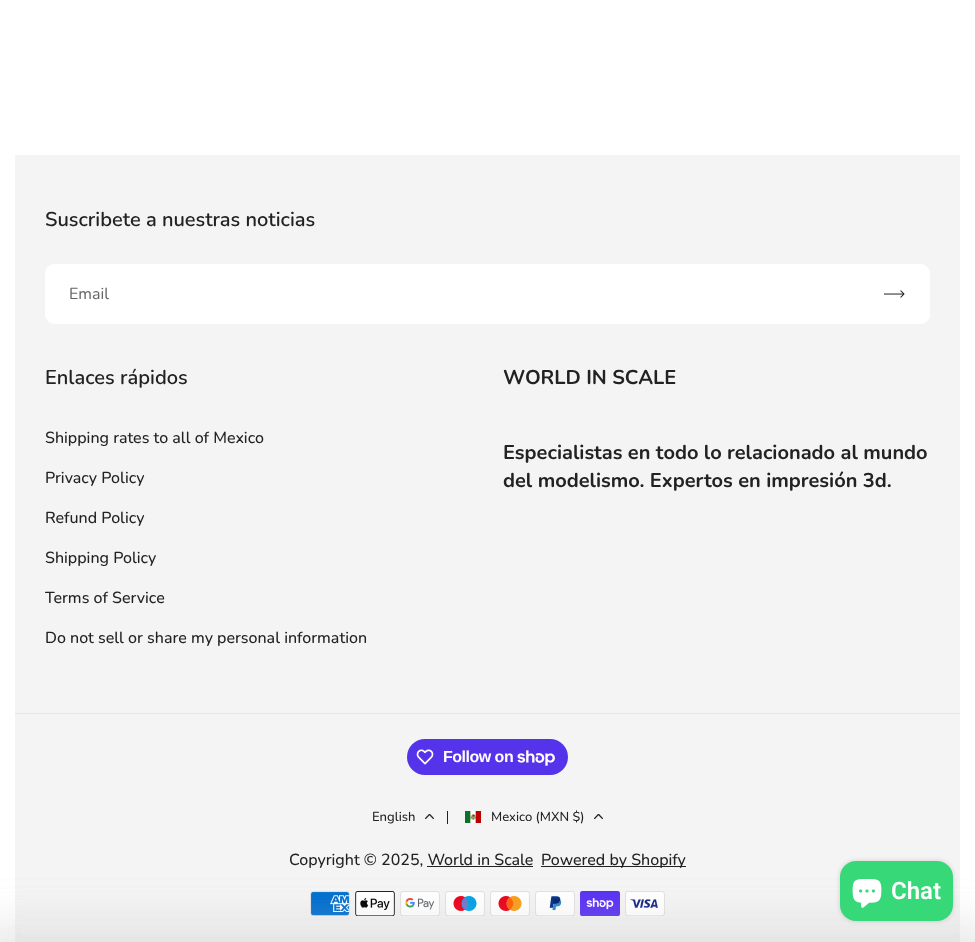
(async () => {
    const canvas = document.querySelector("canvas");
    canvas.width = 975;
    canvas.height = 942;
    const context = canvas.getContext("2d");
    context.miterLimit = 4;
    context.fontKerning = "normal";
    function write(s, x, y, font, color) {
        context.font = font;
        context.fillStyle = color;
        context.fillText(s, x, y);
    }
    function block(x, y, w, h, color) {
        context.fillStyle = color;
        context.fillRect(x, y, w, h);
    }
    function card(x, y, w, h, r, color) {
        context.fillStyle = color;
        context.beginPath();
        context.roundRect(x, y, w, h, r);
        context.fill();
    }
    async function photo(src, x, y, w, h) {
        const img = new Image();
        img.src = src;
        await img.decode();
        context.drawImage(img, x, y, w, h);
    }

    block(0, 0, 975, 942, "rgb(255, 255, 255)");
    block(15, 155, 945, 558, "rgb(244, 244, 244)");
    write("Suscribete a nuestras noticias", 45, 226, "600 20px Nunito", "rgb(34, 34, 34)");
    context.fillStyle = "rgb(255, 255, 255)";
    context.beginPath();
    context.roundRect(45.5, 264.5, 884, 59, 8.5);
    context.fill();
    context.strokeStyle = "rgb(255, 255, 255)";
    context.stroke();
    write("Email", 69, 299, "16px Nunito", "rgb(100, 100, 100)");
    await photo("media/1.png", 884, 290, 21, 8);
    write("Enlaces rápidos", 45, 384, "600 20px Nunito", "rgb(34, 34, 34)");
    write("Shipping rates to all of Mexico", 45, 443, "500 16px Nunito", "rgb(34, 34, 34)");
    write("Privacy Policy", 45, 483, "500 16px Nunito", "rgb(34, 34, 34)");
    write("Refund Policy", 45, 523, "500 16px Nunito", "rgb(34, 34, 34)");
    write("Shipping Policy", 45, 563, "500 16px Nunito", "rgb(34, 34, 34)");
    write("Terms of Service", 45, 603, "500 16px Nunito", "rgb(34, 34, 34)");
    write("Do not sell or share my personal information", 45, 643, "500 16px Nunito", "rgb(34, 34, 34)");
    write("WORLD IN SCALE", 503, 384, "bold 20px Nunito", "rgb(34, 34, 34)");
    write("Especialistas en todo lo relacionado al mundo", 503, 459, "bold 20px Nunito", "rgb(34, 34, 34)");
    write("del modelismo. Expertos en impresión 3d.", 503, 487, "bold 20px Nunito", "rgb(34, 34, 34)");
    block(15, 714, 945, 228, "rgb(244, 244, 244)");
    block(15, 713, 945, 1, "rgb(230, 230, 230)");
    card(407, 739, 161, 36, 18, "rgb(84, 51, 235)");
    await photo("media/2.png", 416, 749, 18, 16);
    context.letterSpacing = "-0.5px";
    write("Follow on", 443, 762, "bold 16px Liberation Sans", "rgb(255, 255, 255)");
    await photo("media/3.png", 517, 750, 38, 16);
    context.letterSpacing = "0px";
    write("English", 372, 821, "500 13px Nunito", "rgb(34, 34, 34)");
    await photo("media/4.png", 425, 814, 9, 5);
    block(447, 811, 1, 13, "rgb(34, 34, 34)");
    await photo("media/5.png", 465, 811, 16, 12);
    write("Mexico (MXN $)", 491, 821, "500 13px Nunito", "rgb(34, 34, 34)");
    await photo("media/4.png", 594, 814, 9, 5);
    write("Copyright © 2025, World in Scale", 289, 865, "500 16px Nunito", "rgb(34, 34, 34)");
    block(541, 866, 145, 1, "rgb(34, 34, 34)");
    write("Powered by Shopify", 541, 865, "500 16px Nunito", "rgb(34, 34, 34)");
    block(427, 866, 106, 1, "rgb(34, 34, 34)");
    await photo("media/6.png", 310, 891, 40, 25);
    await photo("media/7.png", 355, 891, 40, 25);
    await photo("media/8.png", 400, 891, 40, 25);
    await photo("media/9.png", 445, 891, 40, 25);
    await photo("media/10.png", 490, 891, 40, 25);
    await photo("media/11.png", 535, 891, 40, 25);
    await photo("media/12.png", 580, 891, 40, 25);
    await photo("media/13.png", 625, 891, 40, 25);
    context.fillStyle = "rgba(194, 194, 194, 0.25)";
    context.filter = "blur(25px)";
    context.beginPath();
    context.rect(-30, 932, 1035, 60);
    context.fill();
    context.filter = "none";
    context.filter = "blur(25px)";
    context.beginPath();
    context.rect(-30, 932, 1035, 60);
    context.fill();
    context.filter = "none";
    context.fillStyle = "rgba(0, 0, 0, 0.15)";
    context.filter = "blur(2.5px)";
    context.beginPath();
    context.roundRect(840, 861, 113, 60, 16);
    context.fill();
    context.filter = "none";
    card(840, 861, 113, 60, 16, "rgb(55, 216, 120)");
    await photo("media/14.png", 852, 879, 30, 29);
    write("Chat", 891, 899, "600 24px Roboto", "rgb(255, 255, 255)");
})();
